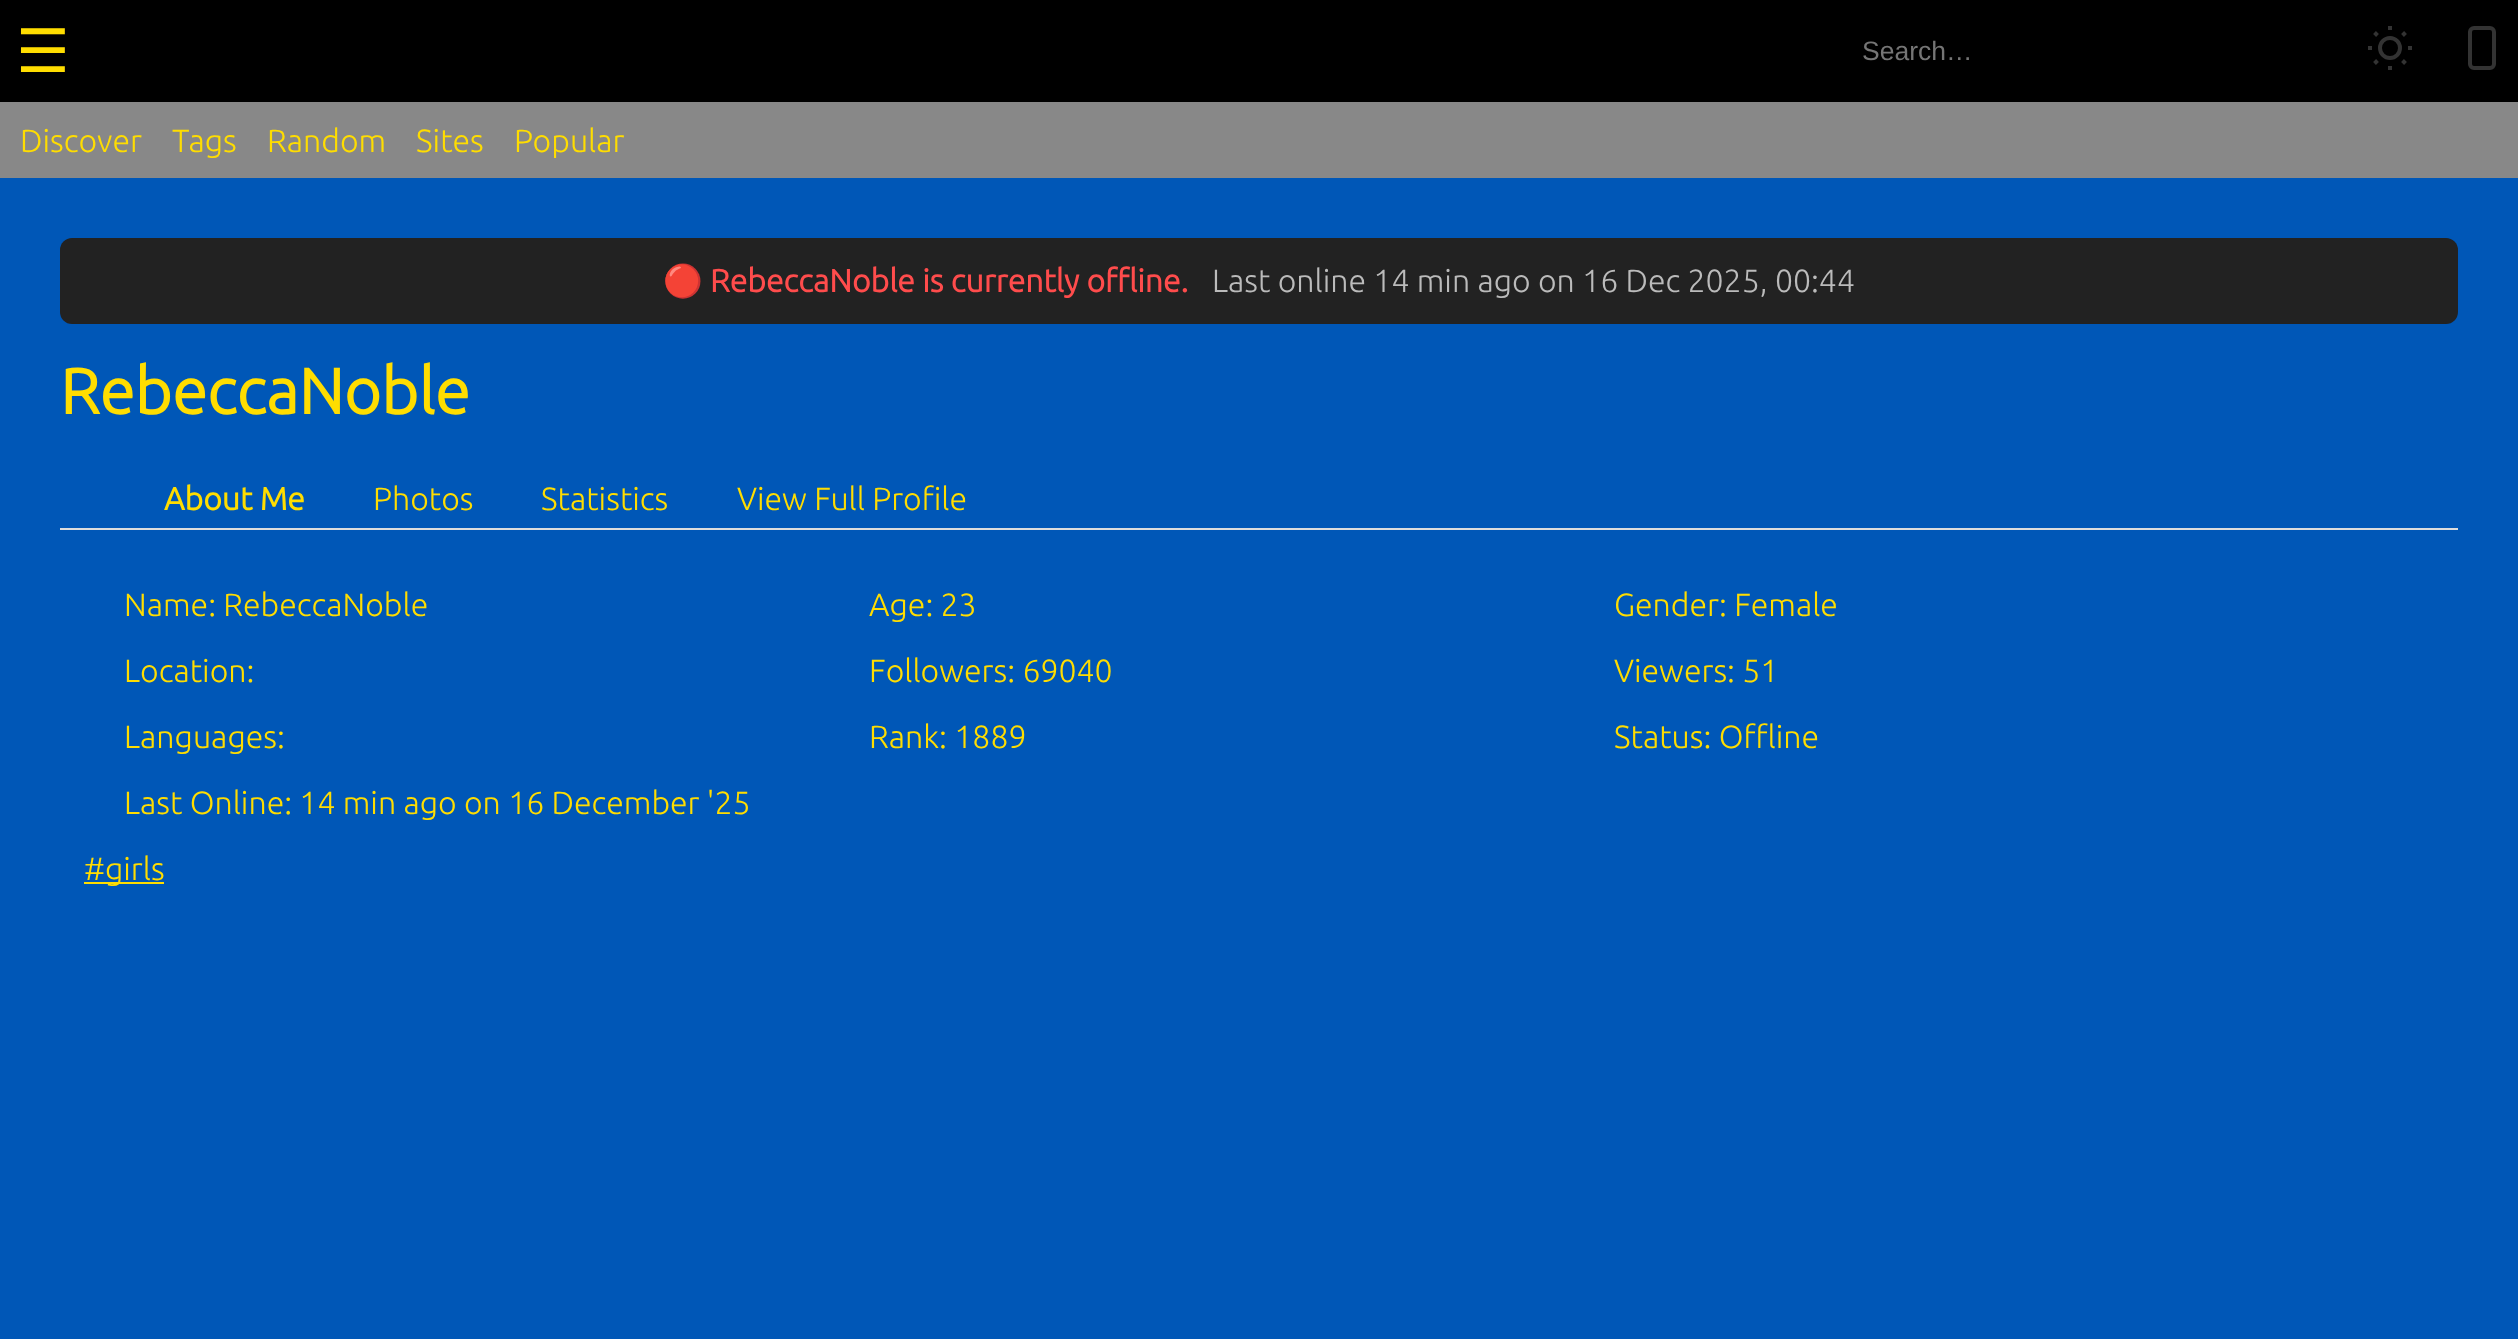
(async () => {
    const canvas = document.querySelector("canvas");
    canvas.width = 2518;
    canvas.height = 1339;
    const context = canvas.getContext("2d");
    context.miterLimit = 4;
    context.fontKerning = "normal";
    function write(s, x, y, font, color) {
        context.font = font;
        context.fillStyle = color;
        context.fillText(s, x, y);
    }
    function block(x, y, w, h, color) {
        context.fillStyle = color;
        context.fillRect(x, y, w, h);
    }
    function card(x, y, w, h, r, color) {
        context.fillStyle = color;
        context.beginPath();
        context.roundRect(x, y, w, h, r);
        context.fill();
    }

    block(0, 0, 2518, 1339, "rgb(136, 136, 136)");
    block(0, 0, 2518, 102, "rgb(0, 0, 0)");
    write("☰", 16, 72, "60px DejaVu Sans", "rgb(255, 221, 0)");
    write("Search…", 1862, 60, "26.5px Liberation Sans", "rgb(117, 117, 117)");
    context.beginPath();
    context.arc(2390, 48, 10, 0, Math.PI * 2);
    context.strokeStyle = "rgb(51, 51, 51)";
    context.lineWidth = 4;
    context.stroke();
    context.beginPath();
    context.moveTo(2390, 26);
    context.lineTo(2390, 30);
    context.moveTo(2390, 66);
    context.lineTo(2390, 70);
    context.moveTo(2374.5, 32.5);
    context.lineTo(2377.5, 35.5);
    context.moveTo(2402.5, 60.5);
    context.lineTo(2405.5, 63.5);
    context.moveTo(2368, 48);
    context.lineTo(2372, 48);
    context.moveTo(2408, 48);
    context.lineTo(2412, 48);
    context.moveTo(2374.5, 63.5);
    context.lineTo(2377.5, 60.5);
    context.moveTo(2402.5, 35.5);
    context.lineTo(2405.5, 32.5);
    context.stroke();
    context.beginPath();
    context.roundRect(2470, 28, 24, 40, 4);
    context.stroke();
    write("Discover", 20, 152, "300 32px Ubuntu", "rgb(255, 221, 0)");
    write("Tags", 172, 152, "300 32px Ubuntu", "rgb(255, 221, 0)");
    write("Random", 267, 152, "300 32px Ubuntu", "rgb(255, 221, 0)");
    write("Sites", 416, 152, "300 32px Ubuntu", "rgb(255, 221, 0)");
    write("Popular", 514, 152, "300 32px Ubuntu", "rgb(255, 221, 0)");
    block(0, 178, 2518, 1161, "rgb(0, 87, 183)");
    card(60, 238, 2398, 86, 12, "rgb(34, 34, 34)");
    write("🔴", 663, 292, "bold 32px Noto Color Emoji", "rgb(255, 76, 76)");
    write("RebeccaNoble is currently offline.", 710, 292, "bold 32px Ubuntu", "rgb(255, 76, 76)");
    write("Last online 14 min ago on 16 Dec 2025, 00:44", 1212, 292, "300 32px Ubuntu", "rgb(187, 187, 187)");
    write("RebeccaNoble", 60, 414, "bold 64px Ubuntu", "rgb(255, 221, 0)");
    block(60, 528, 2398, 2, "rgb(221, 221, 221)");
    write("About Me", 164, 510, "bold 32px Ubuntu", "rgb(255, 221, 0)");
    write("Photos", 373, 510, "300 32px Ubuntu", "rgb(255, 221, 0)");
    write("Statistics", 541, 510, "300 32px Ubuntu", "rgb(255, 221, 0)");
    write("View Full Profile", 737, 510, "300 32px Ubuntu", "rgb(255, 221, 0)");
    write("Name: RebeccaNoble", 124, 616, "300 32px Ubuntu", "rgb(255, 221, 0)");
    write("Age: 23", 869, 616, "300 32px Ubuntu", "rgb(255, 221, 0)");
    write("Gender: Female", 1614, 616, "300 32px Ubuntu", "rgb(255, 221, 0)");
    write("Location:", 124, 682, "300 32px Ubuntu", "rgb(255, 221, 0)");
    write("Followers: 69040", 869, 682, "300 32px Ubuntu", "rgb(255, 221, 0)");
    write("Viewers: 51", 1614, 682, "300 32px Ubuntu", "rgb(255, 221, 0)");
    write("Languages:", 124, 748, "300 32px Ubuntu", "rgb(255, 221, 0)");
    write("Rank: 1889", 869, 748, "300 32px Ubuntu", "rgb(255, 221, 0)");
    write("Status: Offline", 1614, 748, "300 32px Ubuntu", "rgb(255, 221, 0)");
    write("Last Online: 14 min ago on 16 December '25", 124, 814, "300 32px Ubuntu", "rgb(255, 221, 0)");
    block(84, 882, 80, 2, "rgb(255, 221, 0)");
    write("#girls", 84, 880, "300 32px Ubuntu", "rgb(255, 221, 0)");
})();
